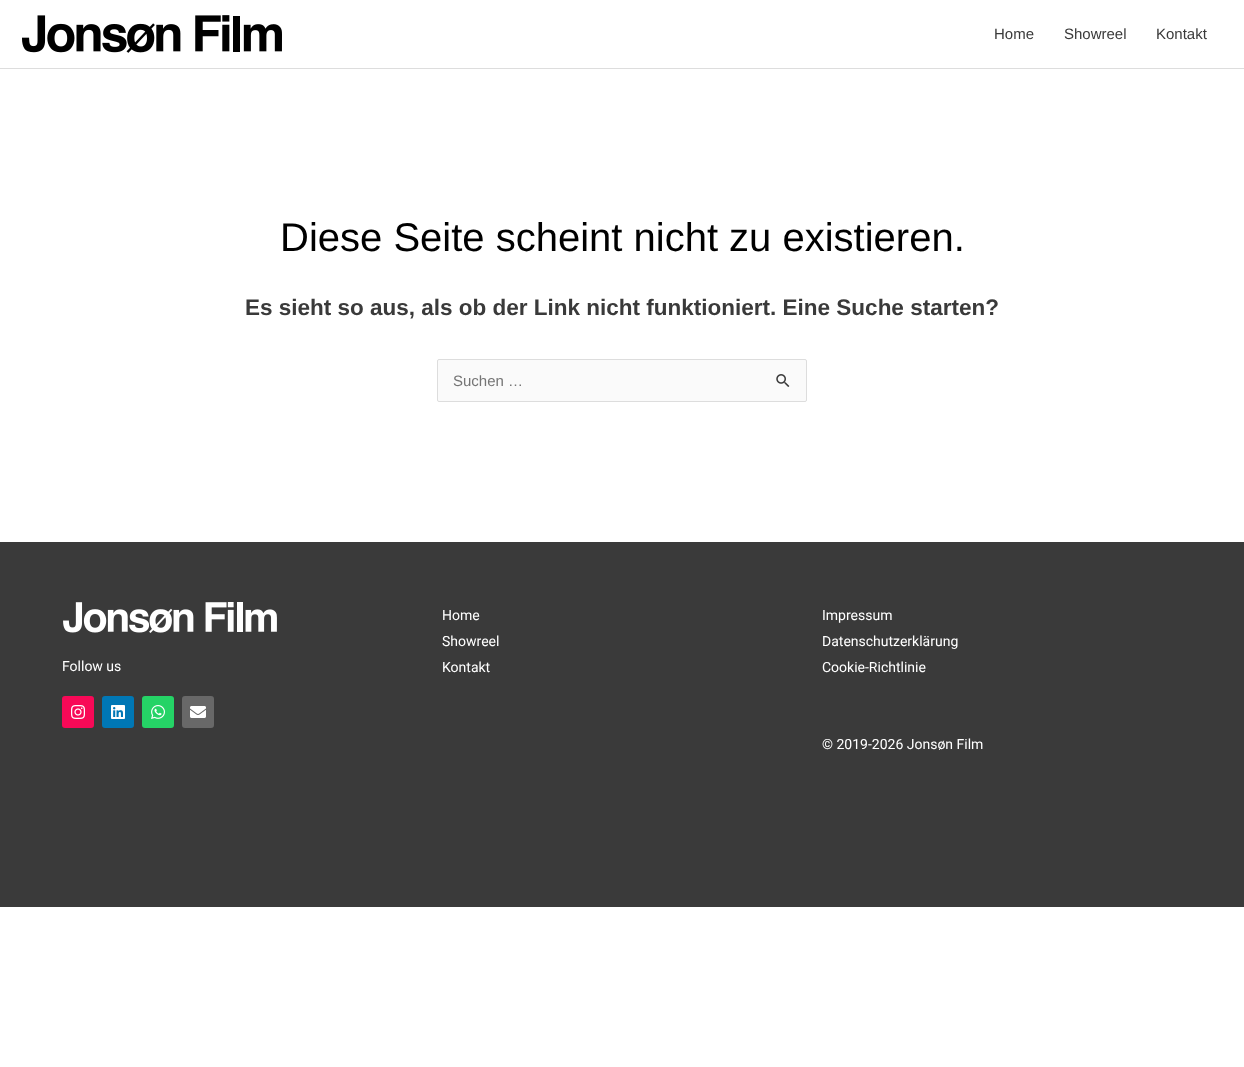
(async () => {
    const canvas = document.querySelector("canvas");
    canvas.width = 1244;
    canvas.height = 1067;
    const context = canvas.getContext("2d");
    context.miterLimit = 4;
    context.fontKerning = "normal";
    function write(s, x, y, font, color) {
        context.font = font;
        context.fillStyle = color;
        context.fillText(s, x, y);
    }
    function block(x, y, w, h, color) {
        context.fillStyle = color;
        context.fillRect(x, y, w, h);
    }
    function card(x, y, w, h, r, color) {
        context.fillStyle = color;
        context.beginPath();
        context.roundRect(x, y, w, h, r);
        context.fill();
    }
    async function photo(src, x, y, w, h) {
        const img = new Image();
        img.src = src;
        await img.decode();
        context.drawImage(img, x, y, w, h);
    }

    block(0, 0, 1244, 1067, "rgb(255, 255, 255)");
    block(0, 68, 1244, 1, "rgb(221, 221, 221)");
    await photo("media/1.png", 22, 15, 260, 38);
    write("Home", 994, 39, "15px Liberation Sans", "rgb(58, 58, 58)");
    write("Showreel", 1064, 39, "15px Liberation Sans", "rgb(58, 58, 58)");
    write("Kontakt", 1156, 39, "15px Liberation Sans", "rgb(58, 58, 58)");
    write("Diese Seite scheint nicht zu existieren.", 280, 251, "40px Liberation Sans", "rgb(0, 0, 0)");
    write("Es sieht so aus, als ob der Link nicht funktioniert. Eine Suche starten?", 245, 315, "bold 22.5px Liberation Sans", "rgb(58, 58, 58)");
    context.fillStyle = "rgb(250, 250, 250)";
    context.beginPath();
    context.roundRect(437.5, 359.5, 369, 42, 1.5);
    context.fill();
    context.strokeStyle = "rgb(221, 221, 221)";
    context.stroke();
    write("Suchen …", 453, 386, "15px Liberation Sans", "rgb(117, 117, 117)");
    await photo("media/2.png", 776, 374, 14, 13);
    block(0, 542, 1244, 365, "rgb(58, 58, 58)");
    await photo("media/3.png", 63, 602, 214, 31);
    write("Follow us", 62, 671, "14px Roboto", "rgb(255, 255, 255)");
    card(62, 696, 32, 32, 3, "rgb(248, 9, 87)");
    await photo("media/4.png", 71, 705, 14, 14);
    card(102, 696, 32, 32, 3, "rgb(0, 119, 181)");
    await photo("media/5.png", 111, 705, 14, 14);
    card(142, 696, 32, 32, 3, "rgb(37, 211, 102)");
    await photo("media/6.png", 151, 705, 14, 14);
    card(182, 696, 32, 32, 3, "rgb(104, 104, 104)");
    await photo("media/7.png", 190, 706, 16, 12);
    write("Home", 442, 620, "14px Roboto", "rgb(255, 255, 255)");
    write("Showreel", 442, 646, "14px Roboto", "rgb(255, 255, 255)");
    write("Kontakt", 442, 672, "14px Roboto", "rgb(255, 255, 255)");
    write("Impressum", 822, 620, "14px Roboto", "rgb(255, 255, 255)");
    write("Datenschutzerklärung", 822, 646, "14px Roboto", "rgb(255, 255, 255)");
    write("Cookie-Richtlinie", 822, 672, "14px Roboto", "rgb(255, 255, 255)");
    write("© 2019-2026 Jonsøn Film", 822, 749, "14px Roboto", "rgb(255, 255, 255)");
})();
